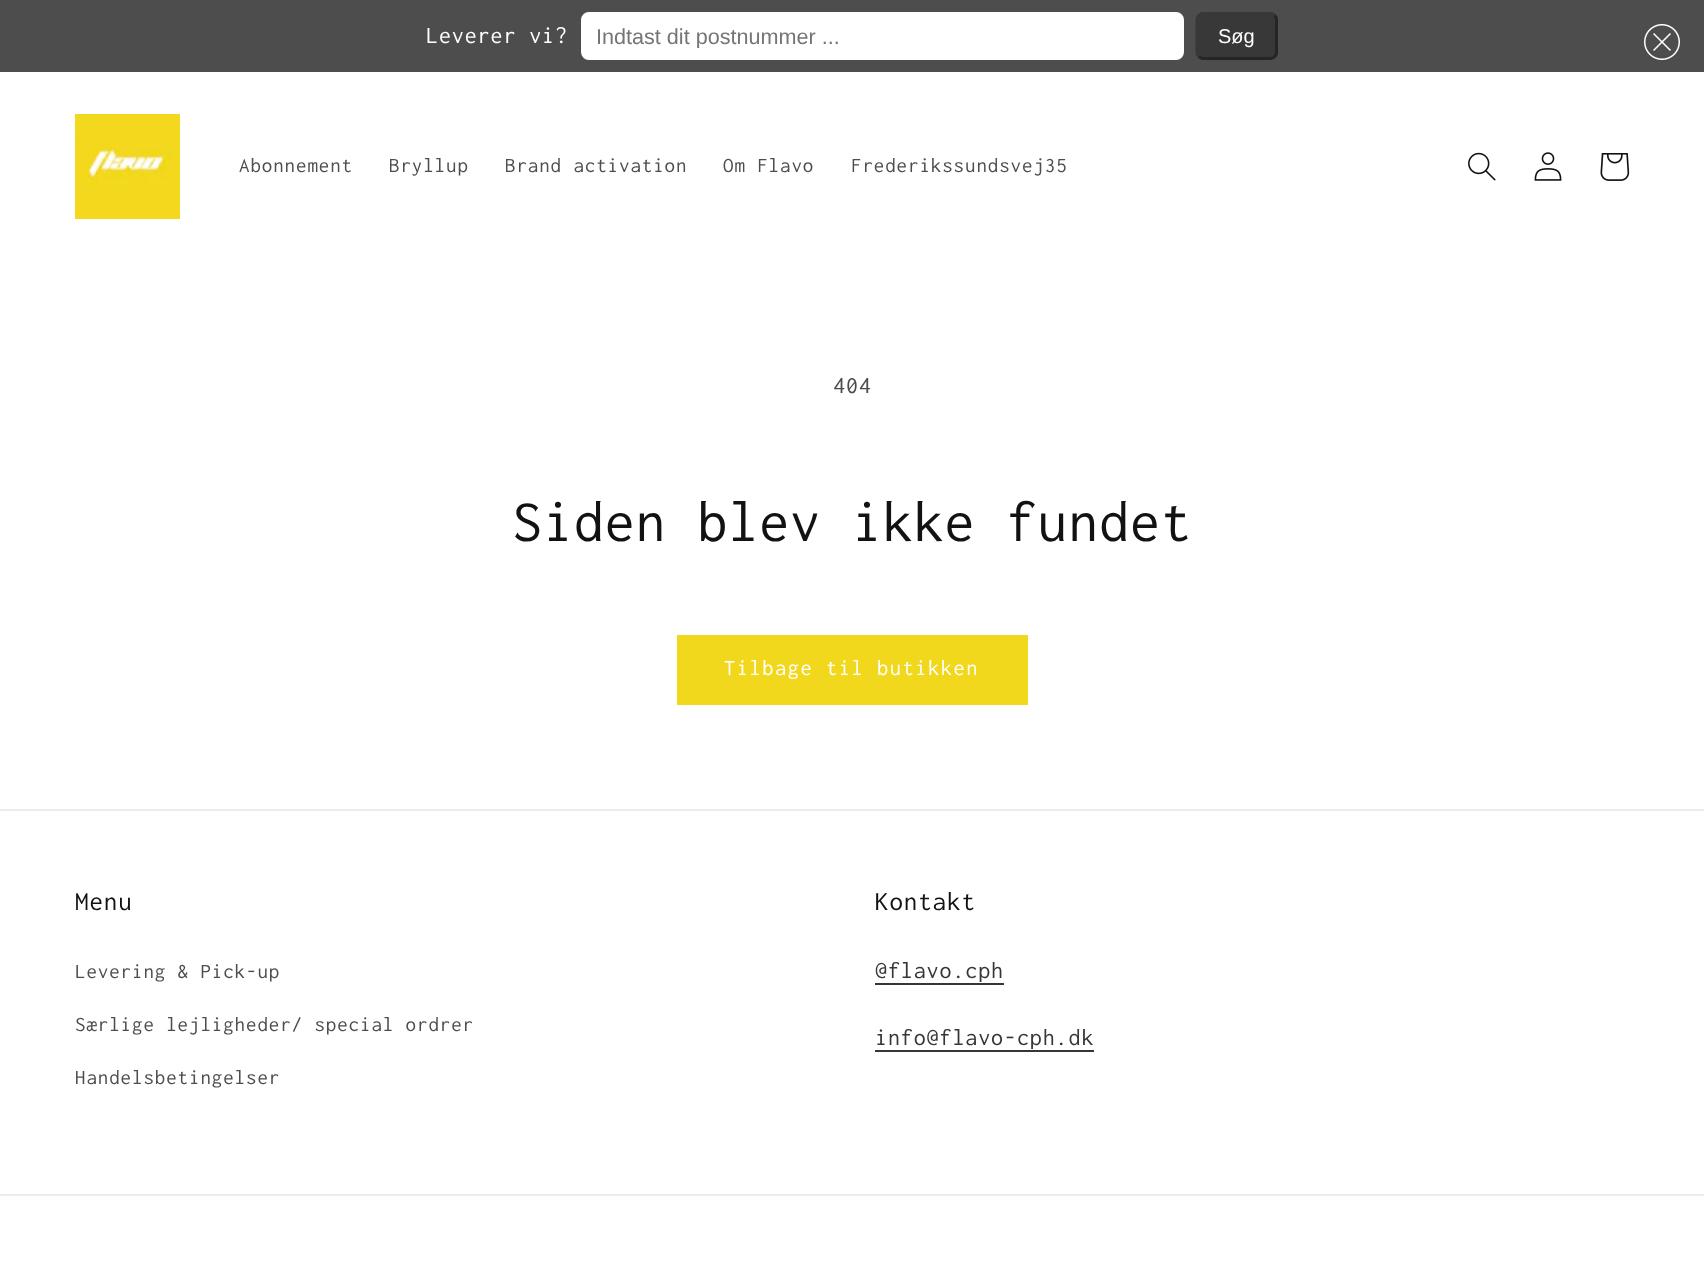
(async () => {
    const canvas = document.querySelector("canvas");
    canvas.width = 1704;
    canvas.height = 1264;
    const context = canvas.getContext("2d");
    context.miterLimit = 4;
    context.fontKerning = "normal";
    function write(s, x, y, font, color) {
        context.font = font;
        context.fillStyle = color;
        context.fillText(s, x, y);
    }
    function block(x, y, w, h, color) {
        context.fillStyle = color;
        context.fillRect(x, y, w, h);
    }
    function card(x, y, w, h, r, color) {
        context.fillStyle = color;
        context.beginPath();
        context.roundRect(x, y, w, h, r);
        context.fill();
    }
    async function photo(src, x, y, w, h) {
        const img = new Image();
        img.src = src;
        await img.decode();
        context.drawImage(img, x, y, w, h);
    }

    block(0, 0, 1704, 1264, "rgb(255, 255, 255)");
    block(0, 0, 1704, 72, "rgb(77, 77, 77)");
    context.letterSpacing = "0.9px";
    write("Leverer vi?", 426, 43, "24px Inconsolata", "rgb(255, 255, 255)");
    context.beginPath();
    context.roundRect(582, 13, 601, 46, 7);
    context.fill();
    context.strokeStyle = "rgb(255, 255, 255)";
    context.lineWidth = 2;
    context.stroke();
    context.save();
    context.beginPath();
    context.rect(585, 24, 594, 24);
    context.clip();
    context.letterSpacing = "0px";
    write("Indtast dit postnummer ...", 596, 44, "21.6px Liberation Sans", "rgb(117, 117, 117)");
    context.restore();
    card(1196, 12, 82, 48, 8, "rgb(56, 56, 56)");
    context.beginPath();
    context.moveTo(1274.5, 15.5);
    context.bezierCurveTo(1276, 16.5, 1276.5, 18, 1276.5, 19.5);
    context.lineTo(1276.5, 52.5);
    context.bezierCurveTo(1276.5, 54, 1276, 55.5, 1274.5, 56.5);
    context.bezierCurveTo(1273.5, 58, 1272, 58.5, 1270.5, 58.5);
    context.lineTo(1203, 58.5);
    context.bezierCurveTo(1201.5, 58.5, 1200, 58, 1199, 56.5);
    context.strokeStyle = "rgb(37, 37, 37)";
    context.lineWidth = 3;
    context.stroke();
    context.beginPath();
    context.moveTo(1199, 56.5);
    context.bezierCurveTo(1197.5, 55.5, 1197, 54, 1197, 52.5);
    context.lineTo(1197, 19.5);
    context.bezierCurveTo(1197, 18, 1197.5, 16.5, 1199, 15.5);
    context.bezierCurveTo(1200, 14, 1201.5, 13.5, 1203, 13.5);
    context.lineTo(1270.5, 13.5);
    context.bezierCurveTo(1272, 13.5, 1273.5, 14, 1274.5, 15.5);
    context.strokeStyle = "rgb(56, 56, 56)";
    context.stroke();
    context.letterSpacing = "0px";
    write("Søg", 1218, 43, "20px Liberation Sans", "rgb(255, 255, 255)");
    await photo("media/1.png", 1644, 24, 36, 36);
    await photo("media/2.png", 75, 114, 105, 105);
    context.letterSpacing = "0.9px";
    write("Abonnement", 239, 172, "21px Inconsolata", "rgb(77, 77, 77)");
    write("Bryllup", 389, 172, "21px Inconsolata", "rgb(77, 77, 77)");
    write("Brand activation", 505, 172, "21px Inconsolata", "rgb(77, 77, 77)");
    write("Om Flavo", 723, 172, "21px Inconsolata", "rgb(77, 77, 77)");
    write("Frederikssundsvej35", 851, 172, "21px Inconsolata", "rgb(77, 77, 77)");
    await photo("media/3.png", 1468, 152, 28, 29);
    await photo("media/4.png", 1534, 152, 28, 29);
    await photo("media/5.png", 1600, 153, 30, 28);
    write("404", 833, 393, "24px Inconsolata", "rgb(77, 77, 77)");
    write("Siden blev ikke fundet", 512, 541, "60px Inconsolata", "rgb(18, 18, 18)");
    context.strokeStyle = "rgb(242, 216, 28)";
    context.lineWidth = 2;
    context.strokeRect(678, 636, 349, 68);
    block(679, 637, 347, 66, "rgb(242, 216, 28)");
    context.letterSpacing = "1.5px";
    write("Tilbage til butikken", 724, 675, "22.5px Inconsolata", "rgb(255, 255, 255)");
    block(0, 809, 1704, 2, "rgb(236, 236, 236)");
    context.letterSpacing = "0.9px";
    write("Menu", 75, 910, "27px Inconsolata", "rgb(18, 18, 18)");
    write("Levering & Pick-up", 75, 978, "21px Inconsolata", "rgb(77, 77, 77)");
    write("Særlige lejligheder/ special ordrer", 75, 1031, "21px Inconsolata", "rgb(77, 77, 77)");
    write("Handelsbetingelser", 75, 1084, "21px Inconsolata", "rgb(77, 77, 77)");
    write("Kontakt", 875, 910, "27px Inconsolata", "rgb(18, 18, 18)");
    write("@flavo.cph", 875, 978, "24px Inconsolata", "rgb(54, 54, 54)");
    block(875, 983, 129, 2, "rgb(54, 54, 54)");
    write("info@flavo-cph.dk", 875, 1045, "24px Inconsolata", "rgb(54, 54, 54)");
    block(875, 1050, 219, 2, "rgb(54, 54, 54)");
    block(0, 1194, 1704, 2, "rgb(236, 236, 236)");
})();
